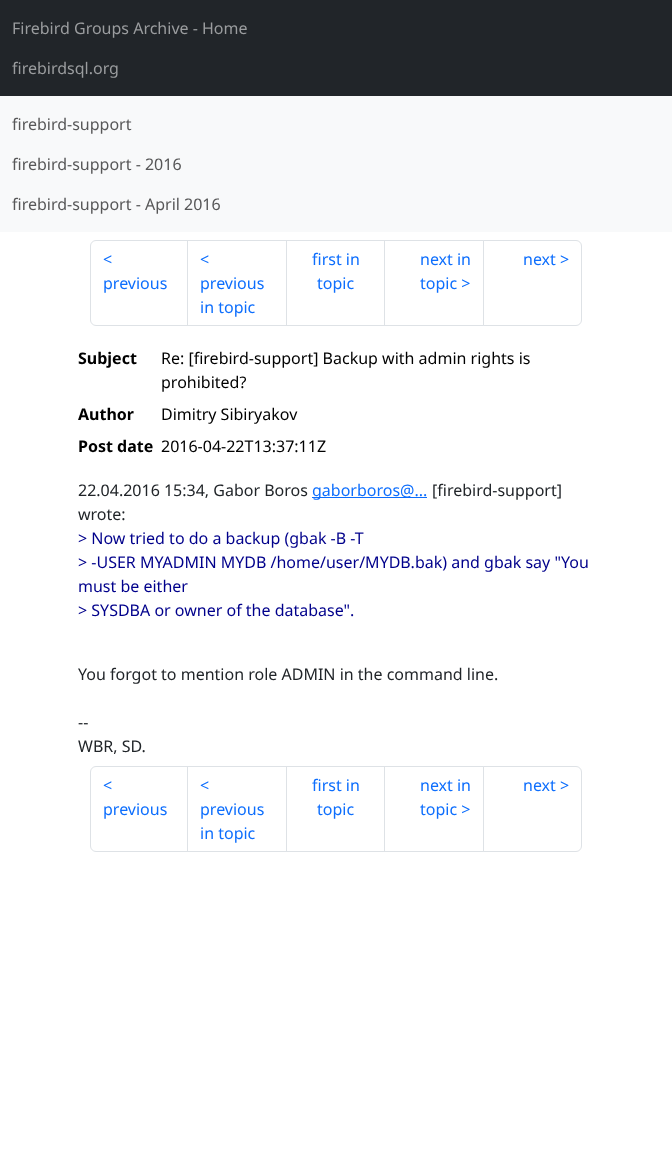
(async () => {
    const canvas = document.querySelector("canvas");
    canvas.width = 672;
    canvas.height = 1161;
    const context = canvas.getContext("2d");
    context.miterLimit = 4;
    context.fontKerning = "normal";
    function write(s, x, y, font, color) {
        context.font = font;
        context.fillStyle = color;
        context.fillText(s, x, y);
    }
    function block(x, y, w, h, color) {
        context.fillStyle = color;
        context.fillRect(x, y, w, h);
    }

    block(0, 0, 672, 1161, "rgb(255, 255, 255)");
    block(0, 0, 672, 96, "rgb(33, 37, 41)");
    write("Firebird Groups Archive - Home", 12, 34, "16px Noto Sans", "rgb(155, 157, 159)");
    write("firebirdsql.org", 12, 74, "16px Noto Sans", "rgb(155, 157, 159)");
    block(0, 96, 672, 136, "rgb(248, 249, 250)");
    write("firebird-support", 12, 130, "16px Noto Sans", "rgb(87, 87, 88)");
    write("firebird-support - 2016", 12, 170, "16px Noto Sans", "rgb(87, 87, 88)");
    write("firebird-support - April 2016", 12, 210, "16px Noto Sans", "rgb(87, 87, 88)");
    context.beginPath();
    context.roundRect(90.5, 240.5, 97, 85, [5.5, 0, 0, 5.5]);
    context.strokeStyle = "rgb(222, 226, 230)";
    context.stroke();
    write("<", 103, 265, "16px Noto Sans", "rgb(13, 110, 253)");
    write("previous", 103, 289, "16px Noto Sans", "rgb(13, 110, 253)");
    context.strokeRect(187.5, 240.5, 99, 85);
    write("<", 200, 265, "16px Noto Sans", "rgb(13, 110, 253)");
    write("previous", 200, 289, "16px Noto Sans", "rgb(13, 110, 253)");
    write("in topic", 200, 313, "16px Noto Sans", "rgb(13, 110, 253)");
    context.strokeRect(286.5, 240.5, 98, 85);
    write("first in", 312, 265, "16px Noto Sans", "rgb(13, 110, 253)");
    write("topic", 317, 289, "16px Noto Sans", "rgb(13, 110, 253)");
    context.strokeRect(384.5, 240.5, 99, 85);
    write("next in", 420, 265, "16px Noto Sans", "rgb(13, 110, 253)");
    write("topic >", 420, 289, "16px Noto Sans", "rgb(13, 110, 253)");
    context.fillStyle = "rgb(255, 255, 255)";
    context.beginPath();
    context.roundRect(483.5, 240.5, 98, 85, [0, 5.5, 5.5, 0]);
    context.fill();
    context.stroke();
    write("next >", 523, 265, "16px Noto Sans", "rgb(13, 110, 253)");
    write("Subject", 78, 364, "bold 16px Noto Sans", "rgb(0, 0, 0)");
    write("Re: [firebird-support] Backup with admin rights is", 161, 364, "16px Noto Sans", "rgb(0, 0, 0)");
    write("prohibited?", 161, 388, "16px Noto Sans", "rgb(0, 0, 0)");
    write("Author", 78, 420, "bold 16px Noto Sans", "rgb(0, 0, 0)");
    write("Dimitry Sibiryakov", 161, 420, "16px Noto Sans", "rgb(0, 0, 0)");
    write("Post date", 78, 452, "bold 16px Noto Sans", "rgb(0, 0, 0)");
    write("2016-04-22T13:37:11Z", 161, 452, "16px Noto Sans", "rgb(0, 0, 0)");
    write("22.04.2016 15:34, Gabor Boros", 78, 496, "16px Noto Sans", "rgb(33, 37, 41)");
    block(312, 497, 115, 1, "rgb(13, 110, 253)");
    write("gaborboros@...", 312, 496, "16px Noto Sans", "rgb(13, 110, 253)");
    write("[firebird-support]", 432, 496, "16px Noto Sans", "rgb(33, 37, 41)");
    write("wrote:", 78, 520, "16px Noto Sans", "rgb(33, 37, 41)");
    write("> Now tried to do a backup (gbak -B -T", 78, 544, "16px Noto Sans", "rgb(0, 0, 139)");
    write("> -USER MYADMIN MYDB /home/user/MYDB.bak) and gbak say \"You", 78, 568, "16px Noto Sans", "rgb(0, 0, 139)");
    write("must be either", 78, 592, "16px Noto Sans", "rgb(0, 0, 139)");
    write("> SYSDBA or owner of the database\".", 78, 616, "16px Noto Sans", "rgb(0, 0, 139)");
    write("You forgot to mention role ADMIN in the command line.", 78, 680, "16px Noto Sans", "rgb(33, 37, 41)");
    write("--", 78, 728, "16px Noto Sans", "rgb(33, 37, 41)");
    write("WBR, SD.", 78, 752, "16px Noto Sans", "rgb(33, 37, 41)");
    context.beginPath();
    context.roundRect(90.5, 766.5, 97, 85, [5.5, 0, 0, 5.5]);
    context.stroke();
    write("<", 103, 791, "16px Noto Sans", "rgb(13, 110, 253)");
    write("previous", 103, 815, "16px Noto Sans", "rgb(13, 110, 253)");
    context.strokeRect(187.5, 766.5, 99, 85);
    write("<", 200, 791, "16px Noto Sans", "rgb(13, 110, 253)");
    write("previous", 200, 815, "16px Noto Sans", "rgb(13, 110, 253)");
    write("in topic", 200, 839, "16px Noto Sans", "rgb(13, 110, 253)");
    context.strokeRect(286.5, 766.5, 98, 85);
    write("first in", 312, 791, "16px Noto Sans", "rgb(13, 110, 253)");
    write("topic", 317, 815, "16px Noto Sans", "rgb(13, 110, 253)");
    context.strokeRect(384.5, 766.5, 99, 85);
    write("next in", 420, 791, "16px Noto Sans", "rgb(13, 110, 253)");
    write("topic >", 420, 815, "16px Noto Sans", "rgb(13, 110, 253)");
    context.fillStyle = "rgb(255, 255, 255)";
    context.beginPath();
    context.roundRect(483.5, 766.5, 98, 85, [0, 5.5, 5.5, 0]);
    context.fill();
    context.stroke();
    write("next >", 523, 791, "16px Noto Sans", "rgb(13, 110, 253)");
})();
